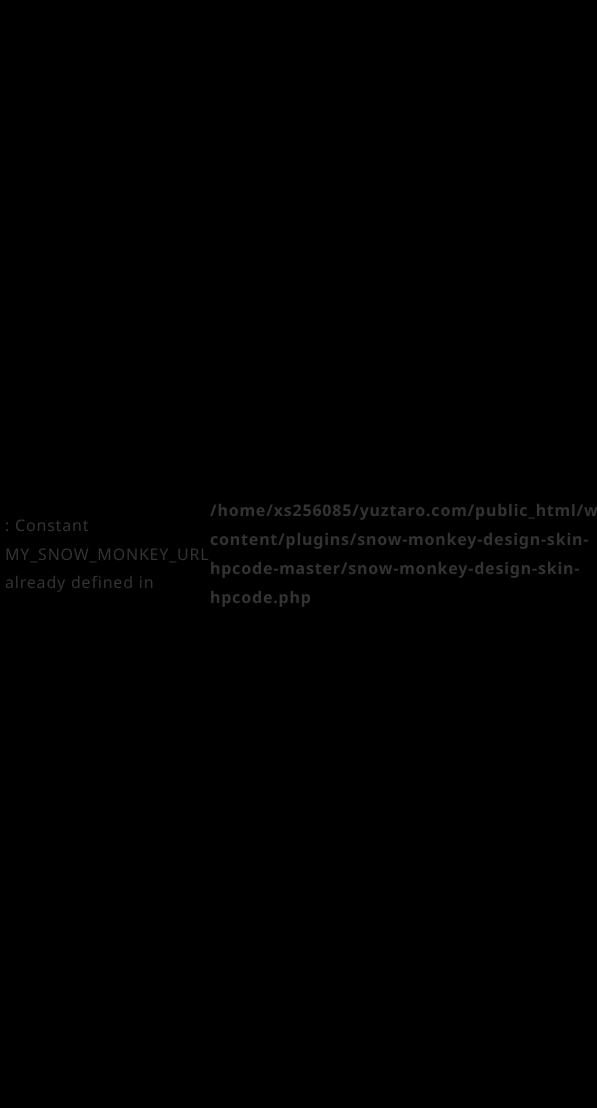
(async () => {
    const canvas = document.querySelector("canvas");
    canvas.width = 597;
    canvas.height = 1108;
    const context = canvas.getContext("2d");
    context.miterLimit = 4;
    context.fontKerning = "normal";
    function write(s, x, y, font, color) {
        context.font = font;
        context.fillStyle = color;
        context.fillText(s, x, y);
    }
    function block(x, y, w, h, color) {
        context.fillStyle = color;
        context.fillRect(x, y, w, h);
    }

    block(0, 0, 597, 1108, "rgb(0, 0, 0)");
    context.letterSpacing = "0.8px";
    write(": Constant", 5, 531, "16px Noto Sans", "rgb(51, 51, 51)");
    write("/home/xs256085/yuztaro.com/public_html/w", 210, 516, "bold 16px Noto Sans", "rgb(51, 51, 51)");
    write("content/plugins/snow-monkey-design-skin-", 210, 545, "bold 16px Noto Sans", "rgb(51, 51, 51)");
    write("hpcode-master/snow-monkey-design-skin-", 210, 574, "bold 16px Noto Sans", "rgb(51, 51, 51)");
    write("hpcode.php", 210, 603, "bold 16px Noto Sans", "rgb(51, 51, 51)");
    write("MY_SNOW_MONKEY_URL", 5, 560, "16px Noto Sans", "rgb(51, 51, 51)");
    write("already defined in", 5, 588, "16px Noto Sans", "rgb(51, 51, 51)");
})();
